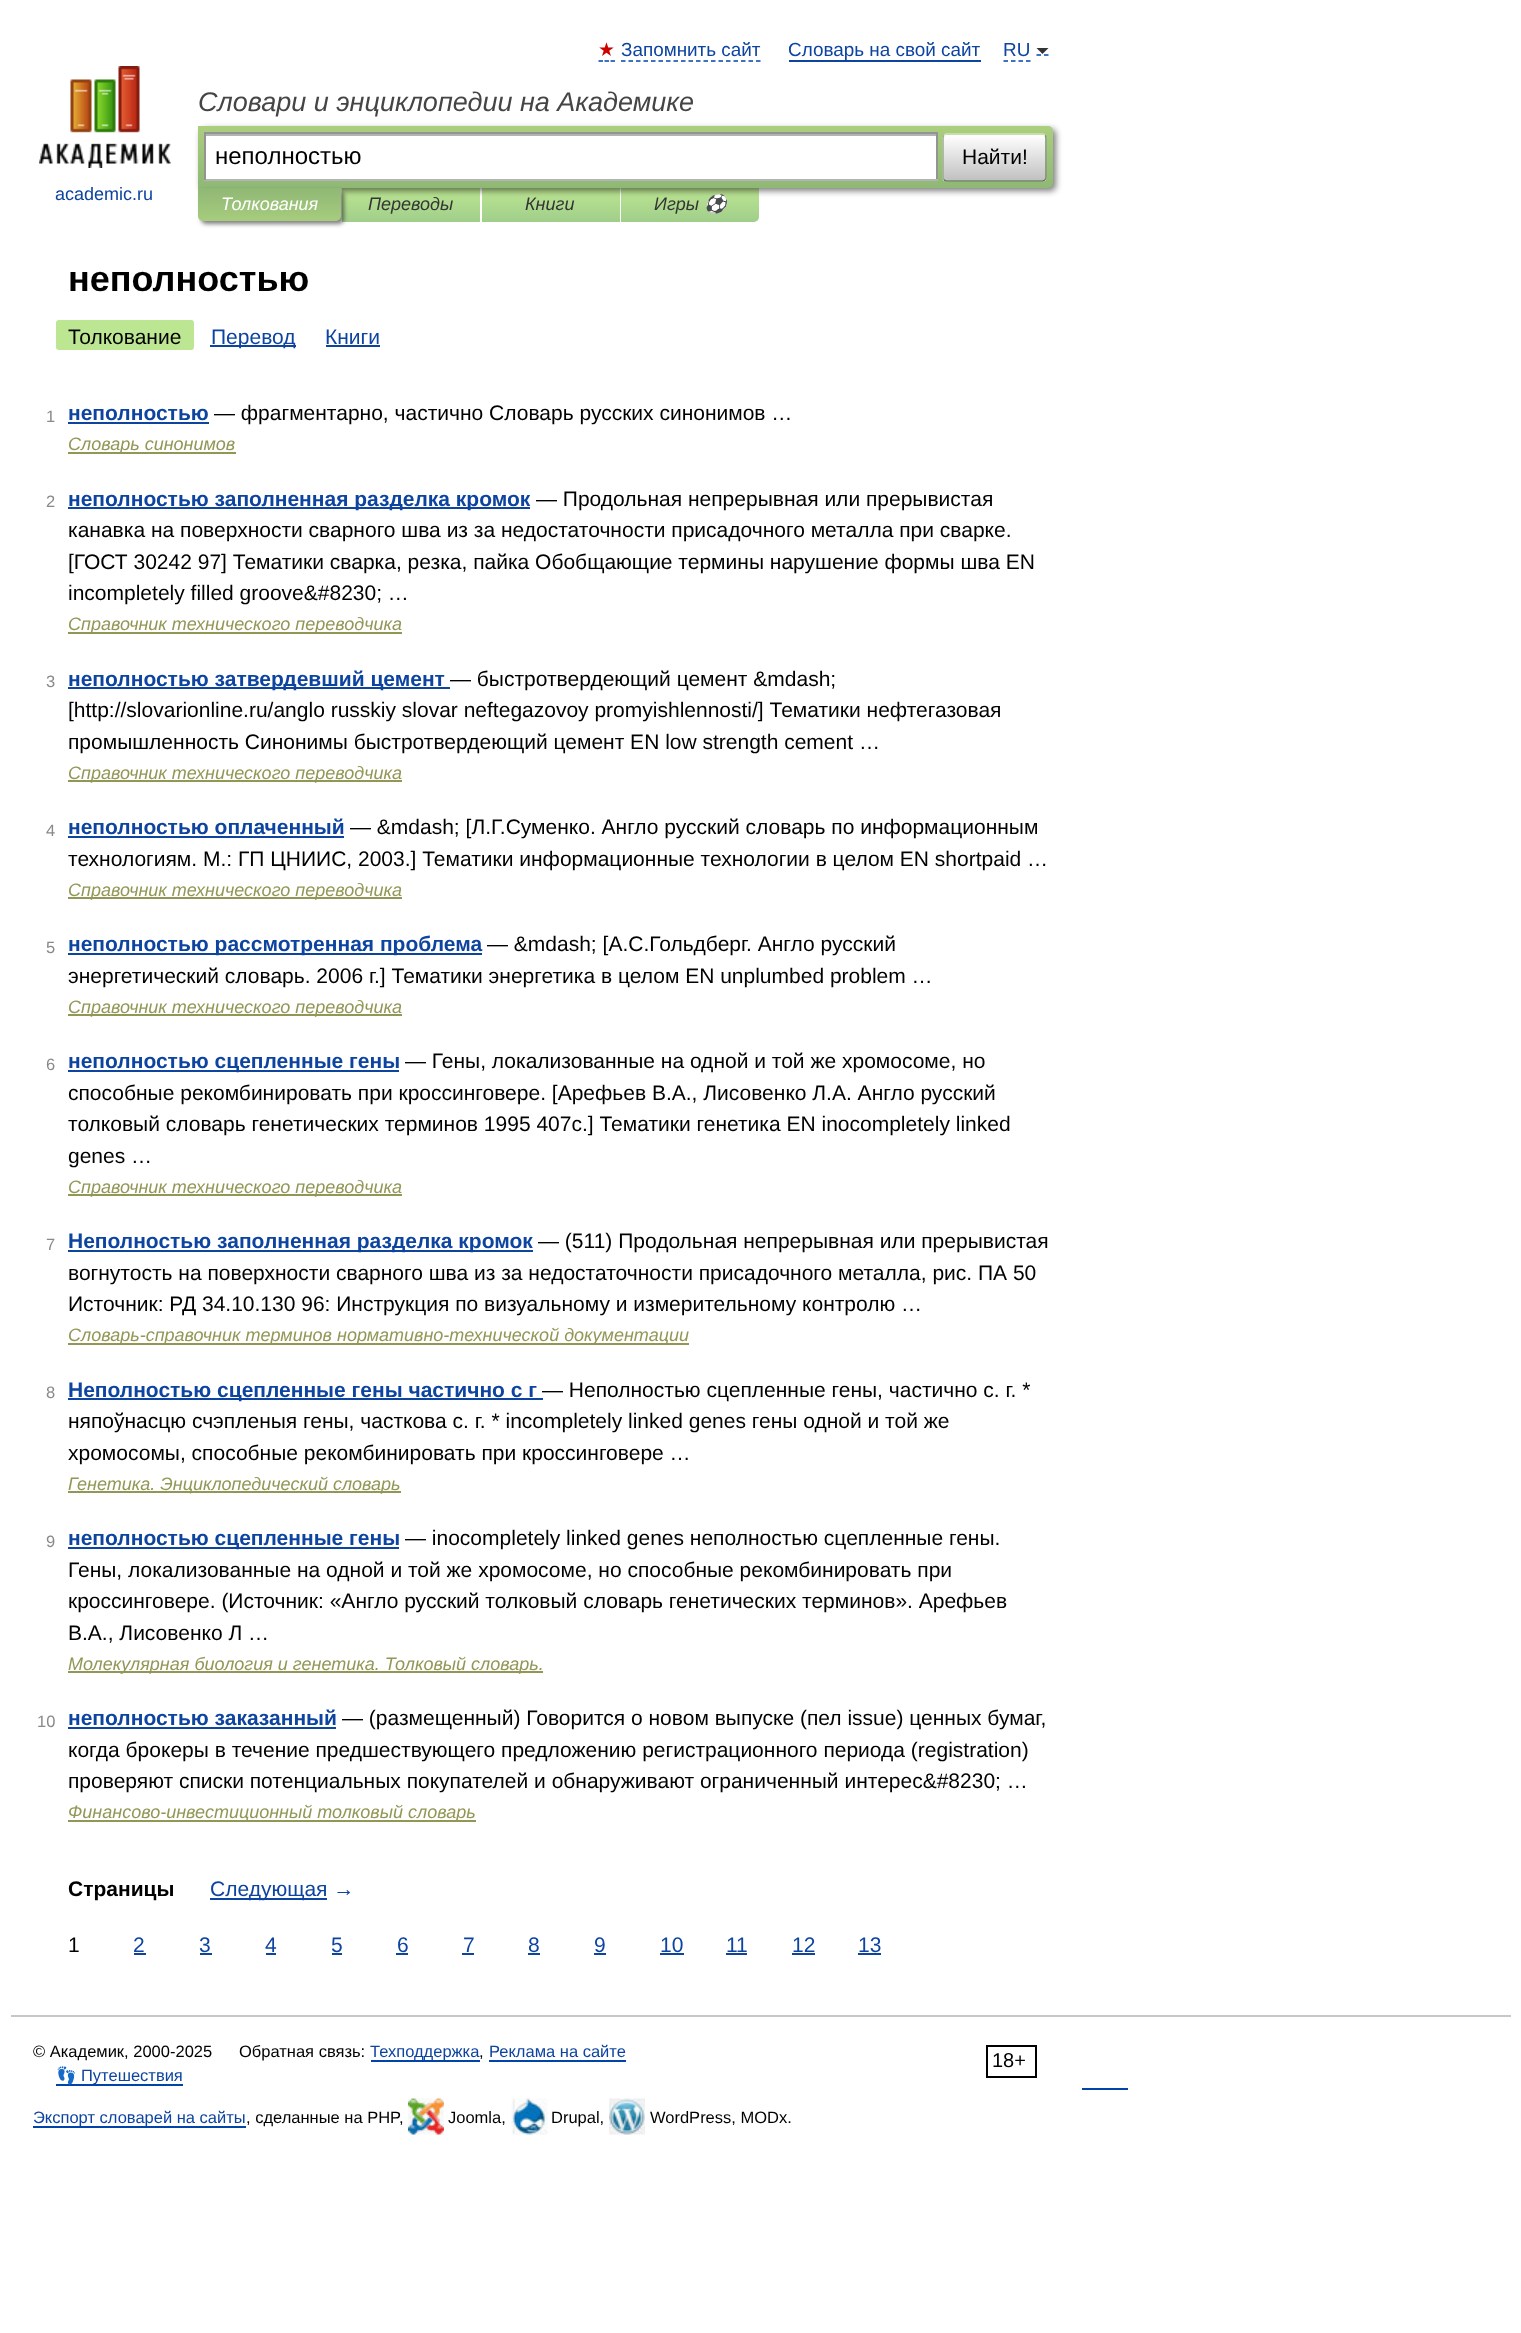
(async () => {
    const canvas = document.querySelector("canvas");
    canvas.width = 1521;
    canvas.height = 2333;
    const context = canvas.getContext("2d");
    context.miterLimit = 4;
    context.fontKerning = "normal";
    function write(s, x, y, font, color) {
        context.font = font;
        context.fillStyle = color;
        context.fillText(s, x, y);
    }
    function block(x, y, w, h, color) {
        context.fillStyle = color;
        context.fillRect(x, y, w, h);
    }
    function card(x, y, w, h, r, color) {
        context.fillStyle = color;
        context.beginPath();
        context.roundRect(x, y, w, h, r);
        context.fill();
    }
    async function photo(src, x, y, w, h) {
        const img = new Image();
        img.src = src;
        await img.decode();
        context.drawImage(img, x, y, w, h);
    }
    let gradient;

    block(0, 0, 1521, 2333, "rgb(255, 255, 255)");
    write("★", 598, 56, "18.9px DejaVu Sans", "rgb(204, 0, 0)");
    context.beginPath();
    context.moveTo(598.5, 61);
    context.lineTo(603, 61);
    context.moveTo(604.5, 61);
    context.lineTo(609, 61);
    context.moveTo(610.5, 61);
    context.lineTo(615, 61);
    context.strokeStyle = "rgb(0, 68, 170)";
    context.lineWidth = 1.5;
    context.stroke();
    write("Запомнить сайт", 621, 56, "18.9px Liberation Sans", "rgb(13, 68, 160)");
    context.beginPath();
    context.moveTo(621, 61);
    context.lineTo(760.5, 61);
    context.setLineDash([4.5, 3]);
    context.stroke();
    write("Словарь на свой сайт", 788, 56, "18.9px Liberation Sans", "rgb(13, 68, 160)");
    block(789, 60, 192, 2, "rgb(13, 68, 160)");
    context.beginPath();
    context.moveTo(1003.5, 61);
    context.lineTo(1030.5, 61);
    context.stroke();
    context.beginPath();
    context.moveTo(1036.5, 55);
    context.lineTo(1041, 55);
    context.moveTo(1044, 55);
    context.lineTo(1048.5, 55);
    context.setLineDash([]);
    context.stroke();
    write("RU", 1003, 56, "18.9px Liberation Sans", "rgb(13, 68, 160)");
    context.fillStyle = "rgb(51, 51, 51)";
    context.beginPath();
    context.moveTo(1036.5, 48);
    context.lineTo(1048.5, 48);
    context.lineTo(1042.5, 54);
    context.closePath();
    context.fill();
    write("Словари и энциклопедии на Академике", 198, 111, "italic 27px Liberation Sans", "rgb(69, 69, 69)");
    gradient = context.createLinearGradient(411, 188, 411, 222);
    gradient.addColorStop(0, "rgb(189, 230, 147)");
    gradient.addColorStop(1, "rgb(160, 206, 138)");
    context.fillStyle = gradient;
    context.fillRect(342, 188, 138, 34);
    gradient = context.createLinearGradient(551, 188, 551, 222);
    gradient.addColorStop(0, "rgb(189, 230, 147)");
    gradient.addColorStop(1, "rgb(160, 206, 138)");
    context.fillStyle = gradient;
    context.fillRect(482, 188, 138, 34);
    gradient = context.createLinearGradient(690, 188, 690, 222);
    gradient.addColorStop(0, "rgb(189, 230, 147)");
    gradient.addColorStop(1, "rgb(160, 206, 138)");
    context.fillStyle = gradient;
    context.beginPath();
    context.roundRect(621, 188, 138, 34, [0, 0, 5, 0]);
    context.fill();
    context.fillStyle = "rgba(0, 0, 0, 0.5)";
    context.filter = "blur(3px)";
    context.beginPath();
    context.roundRect(201, 129, 855, 62, 5);
    context.fill();
    context.filter = "none";
    gradient = context.createLinearGradient(626, 126, 626, 188);
    gradient.addColorStop(0, "rgb(171, 207, 126)");
    gradient.addColorStop(1, "rgb(142, 184, 116)");
    context.fillStyle = gradient;
    context.beginPath();
    context.roundRect(198, 126, 855, 62, [0, 5, 5, 0]);
    context.fill();
    block(206, 136, 730, 43, "rgb(255, 255, 255)");
    block(206, 134, 730, 2, "rgb(179, 179, 179)");
    block(204, 132, 734, 2, "rgb(148, 148, 148)");
    block(936, 132, 2, 48, "rgb(148, 148, 148)");
    block(204, 179, 734, 2, "rgb(180, 180, 180)");
    block(204, 132, 2, 48, "rgb(148, 148, 148)");
    write("неполностью", 215, 164, "24px Liberation Sans", "rgb(0, 0, 0)");
    context.save();
    context.beginPath();
    context.roundRect(942, 134, 105, 48, 5);
    context.clip();
    gradient = context.createLinearGradient(995, 135, 995, 180);
    gradient.addColorStop(0, "rgb(255, 255, 255)");
    gradient.addColorStop(1, "rgb(193, 193, 193)");
    context.fillStyle = gradient;
    context.fillRect(942, 135, 105, 45);
    gradient = context.createLinearGradient(995, 180, 995, 225);
    gradient.addColorStop(0, "rgb(255, 255, 255)");
    gradient.addColorStop(1, "rgb(193, 193, 193)");
    context.fillStyle = gradient;
    context.fillRect(942, 180, 105, 2);
    context.restore();
    context.beginPath();
    context.moveTo(944, 135.5);
    context.bezierCurveTo(944.5, 134.5, 945.5, 134, 946.5, 134);
    context.lineTo(1042.5, 134);
    context.bezierCurveTo(1043.5, 134, 1044.5, 134.5, 1045, 135.5);
    context.strokeStyle = "rgb(209, 228, 188)";
    context.stroke();
    context.beginPath();
    context.moveTo(1045, 135.5);
    context.bezierCurveTo(1046, 136, 1046, 137, 1046, 138);
    context.lineTo(1046, 177);
    context.bezierCurveTo(1046, 178, 1046, 179, 1045, 179.5);
    context.strokeStyle = "rgb(122, 142, 105)";
    context.stroke();
    context.beginPath();
    context.moveTo(1045, 179.5);
    context.bezierCurveTo(1044.5, 180.5, 1043.5, 181, 1042.5, 181);
    context.lineTo(946.5, 181);
    context.bezierCurveTo(945.5, 181, 944.5, 180.5, 944, 179.5);
    context.strokeStyle = "rgb(93, 114, 80)";
    context.stroke();
    context.beginPath();
    context.moveTo(944, 179.5);
    context.bezierCurveTo(943, 179, 943, 178, 943, 177);
    context.lineTo(943, 138);
    context.bezierCurveTo(943, 137, 943, 136, 944, 135.5);
    context.strokeStyle = "rgb(154, 174, 137)";
    context.stroke();
    write("Найти!", 962, 164, "21px Liberation Sans", "rgb(0, 0, 0)");
    await photo("media/1.png", 39, 66, 132, 102);
    write("academic.ru", 55, 200, "18px Liberation Sans", "rgb(13, 68, 160)");
    context.fillStyle = "rgba(0, 0, 0, 0.5)";
    context.filter = "blur(2px)";
    context.beginPath();
    context.roundRect(201, 191, 143, 33, 5);
    context.fill();
    context.filter = "none";
    gradient = context.createLinearGradient(269, 188, 269, 221);
    gradient.addColorStop(0, "rgb(143, 184, 117)");
    gradient.addColorStop(1, "rgb(167, 204, 125)");
    context.fillStyle = gradient;
    context.beginPath();
    context.roundRect(198, 188, 143, 33, [0, 0, 5, 5]);
    context.fill();
    write("Толкования", 221, 210, "italic 18px Liberation Sans", "rgb(255, 255, 255)");
    write("Переводы", 368, 210, "italic 18px Liberation Sans", "rgb(53, 53, 53)");
    write("Книги", 525, 210, "italic 18px Liberation Sans", "rgb(53, 53, 53)");
    write("Игры", 654, 210, "italic 18px Liberation Sans", "rgb(53, 53, 53)");
    write("⚽", 704, 210, "italic 18px Noto Color Emoji", "rgb(53, 53, 53)");
    write("неполностью", 68, 291, "bold 36px Liberation Sans", "rgb(0, 0, 0)");
    card(56, 320, 138, 30, 3, "rgb(189, 230, 147)");
    write("Толкование", 68, 344, "21px Liberation Sans", "rgb(0, 0, 0)");
    block(210, 345, 86, 2, "rgb(13, 68, 160)");
    write("Перевод", 211, 344, "21px Liberation Sans", "rgb(13, 68, 160)");
    write("Книги", 325, 344, "21px Liberation Sans", "rgb(13, 68, 160)");
    block(326, 345, 54, 2, "rgb(13, 68, 160)");
    write("1", 46, 422, "16.5px Liberation Sans", "rgb(137, 137, 137)");
    write("неполностью", 68, 420, "bold 21px Liberation Sans", "rgb(13, 68, 160)");
    block(68, 422, 141, 2, "rgb(13, 68, 160)");
    write("— фрагментарно, частично Словарь русских синонимов …", 214, 420, "21px Liberation Sans", "rgb(0, 0, 0)");
    block(68, 452, 168, 2, "rgb(147, 151, 86)");
    write("Словарь синонимов", 68, 450, "italic 18px Liberation Sans", "rgb(147, 151, 86)");
    write("2", 46, 507, "16.5px Liberation Sans", "rgb(137, 137, 137)");
    block(68, 507, 462, 2, "rgb(13, 68, 160)");
    write("неполностью заполненная разделка кромок", 68, 506, "bold 21px Liberation Sans", "rgb(13, 68, 160)");
    write("— Продольная непрерывная или прерывистая", 536, 506, "21px Liberation Sans", "rgb(0, 0, 0)");
    write("канавка на поверхности сварного шва из за недостаточности присадочного металла при сварке.", 68, 537, "21px Liberation Sans", "rgb(0, 0, 0)");
    write("[ГОСТ 30242 97] Тематики сварка, резка, пайка Обобщающие термины нарушение формы шва EN", 68, 569, "21px Liberation Sans", "rgb(0, 0, 0)");
    write("incompletely filled groove&#8230; …", 68, 600, "21px Liberation Sans", "rgb(0, 0, 0)");
    block(68, 632, 334, 2, "rgb(147, 151, 86)");
    write("Справочник технического переводчика", 68, 630, "italic 18px Liberation Sans", "rgb(147, 151, 86)");
    write("3", 46, 687, "16.5px Liberation Sans", "rgb(137, 137, 137)");
    block(68, 687, 382, 2, "rgb(13, 68, 160)");
    write("неполностью затвердевший цемент", 68, 686, "bold 21px Liberation Sans", "rgb(13, 68, 160)");
    write("— быстротвердеющий цемент &mdash;", 450, 686, "21px Liberation Sans", "rgb(0, 0, 0)");
    write("[http://slovarionline.ru/anglo russkiy slovar neftegazovoy promyishlennosti/] Тематики нефтегазовая", 68, 717, "21px Liberation Sans", "rgb(0, 0, 0)");
    write("промышленность Синонимы быстротвердеющий цемент EN low strength cement …", 68, 749, "21px Liberation Sans", "rgb(0, 0, 0)");
    block(68, 780, 334, 2, "rgb(147, 151, 86)");
    write("Справочник технического переводчика", 68, 779, "italic 18px Liberation Sans", "rgb(147, 151, 86)");
    write("4", 46, 836, "16.5px Liberation Sans", "rgb(137, 137, 137)");
    write("неполностью оплаченный", 68, 834, "bold 21px Liberation Sans", "rgb(13, 68, 160)");
    block(68, 836, 276, 2, "rgb(13, 68, 160)");
    write("— &mdash; [Л.Г.Суменко. Англо русский словарь по информационным", 350, 834, "21px Liberation Sans", "rgb(0, 0, 0)");
    write("технологиям. М.: ГП ЦНИИС, 2003.] Тематики информационные технологии в целом EN shortpaid …", 68, 866, "21px Liberation Sans", "rgb(0, 0, 0)");
    block(68, 897, 334, 2, "rgb(147, 151, 86)");
    write("Справочник технического переводчика", 68, 896, "italic 18px Liberation Sans", "rgb(147, 151, 86)");
    write("5", 46, 953, "16.5px Liberation Sans", "rgb(137, 137, 137)");
    block(68, 953, 414, 2, "rgb(13, 68, 160)");
    write("неполностью рассмотренная проблема", 68, 951, "bold 21px Liberation Sans", "rgb(13, 68, 160)");
    write("— &mdash; [А.С.Гольдберг. Англо русский", 487, 951, "21px Liberation Sans", "rgb(0, 0, 0)");
    write("энергетический словарь. 2006 г.] Тематики энергетика в целом EN unplumbed problem …", 68, 983, "21px Liberation Sans", "rgb(0, 0, 0)");
    block(68, 1014, 334, 2, "rgb(147, 151, 86)");
    write("Справочник технического переводчика", 68, 1013, "italic 18px Liberation Sans", "rgb(147, 151, 86)");
    write("6", 46, 1070, "16.5px Liberation Sans", "rgb(137, 137, 137)");
    block(68, 1070, 331, 2, "rgb(13, 68, 160)");
    write("неполностью сцепленные гены", 68, 1068, "bold 21px Liberation Sans", "rgb(13, 68, 160)");
    write("— Гены, локализованные на одной и той же хромосоме, но", 405, 1068, "21px Liberation Sans", "rgb(0, 0, 0)");
    write("способные рекомбинировать при кроссинговере. [Арефьев В.А., Лисовенко Л.А. Англо русский", 68, 1100, "21px Liberation Sans", "rgb(0, 0, 0)");
    write("толковый словарь генетических терминов 1995 407с.] Тематики генетика EN inocompletely linked", 68, 1131, "21px Liberation Sans", "rgb(0, 0, 0)");
    write("genes …", 68, 1163, "21px Liberation Sans", "rgb(0, 0, 0)");
    block(68, 1194, 334, 2, "rgb(147, 151, 86)");
    write("Справочник технического переводчика", 68, 1193, "italic 18px Liberation Sans", "rgb(147, 151, 86)");
    write("7", 46, 1250, "16.5px Liberation Sans", "rgb(137, 137, 137)");
    block(68, 1250, 465, 2, "rgb(13, 68, 160)");
    write("Неполностью заполненная разделка кромок", 68, 1248, "bold 21px Liberation Sans", "rgb(13, 68, 160)");
    write("— (511) Продольная непрерывная или прерывистая", 538, 1248, "21px Liberation Sans", "rgb(0, 0, 0)");
    write("вогнутость на поверхности сварного шва из за недостаточности присадочного металла, рис. ПА 50", 68, 1280, "21px Liberation Sans", "rgb(0, 0, 0)");
    write("Источник: РД 34.10.130 96: Инструкция по визуальному и измерительному контролю …", 68, 1311, "21px Liberation Sans", "rgb(0, 0, 0)");
    block(68, 1343, 621, 2, "rgb(147, 151, 86)");
    write("Словарь-справочник терминов нормативно-технической документации", 68, 1341, "italic 18px Liberation Sans", "rgb(147, 151, 86)");
    write("8", 46, 1398, "16.5px Liberation Sans", "rgb(137, 137, 137)");
    block(68, 1398, 475, 2, "rgb(13, 68, 160)");
    write("Неполностью сцепленные гены частично с г", 68, 1397, "bold 21px Liberation Sans", "rgb(13, 68, 160)");
    write("— Неполностью сцепленные гены, частично с. г. *", 542, 1397, "21px Liberation Sans", "rgb(0, 0, 0)");
    write("няпоўнасцю счэпленыя гены, часткова с. г. * incompletely linked genes гены одной и той же", 68, 1428, "21px Liberation Sans", "rgb(0, 0, 0)");
    write("хромосомы, способные рекомбинировать при кроссинговере …", 68, 1460, "21px Liberation Sans", "rgb(0, 0, 0)");
    block(68, 1491, 333, 2, "rgb(147, 151, 86)");
    write("Генетика. Энциклопедический словарь", 68, 1490, "italic 18px Liberation Sans", "rgb(147, 151, 86)");
    write("9", 46, 1547, "16.5px Liberation Sans", "rgb(137, 137, 137)");
    block(68, 1547, 331, 2, "rgb(13, 68, 160)");
    write("неполностью сцепленные гены", 68, 1545, "bold 21px Liberation Sans", "rgb(13, 68, 160)");
    write("— inocompletely linked genes неполностью сцепленные гены.", 405, 1545, "21px Liberation Sans", "rgb(0, 0, 0)");
    write("Гены, локализованные на одной и той же хромосоме, но способные рекомбинировать при", 68, 1577, "21px Liberation Sans", "rgb(0, 0, 0)");
    write("кроссинговере. (Источник: «Англо русский толковый словарь генетических терминов». Арефьев", 68, 1608, "21px Liberation Sans", "rgb(0, 0, 0)");
    write("В.А., Лисовенко Л …", 68, 1640, "21px Liberation Sans", "rgb(0, 0, 0)");
    block(68, 1671, 475, 2, "rgb(147, 151, 86)");
    write("Молекулярная биология и генетика. Толковый словарь.", 68, 1670, "italic 18px Liberation Sans", "rgb(147, 151, 86)");
    write("10", 37, 1727, "16.5px Liberation Sans", "rgb(137, 137, 137)");
    write("неполностью заказанный", 68, 1725, "bold 21px Liberation Sans", "rgb(13, 68, 160)");
    block(68, 1727, 268, 2, "rgb(13, 68, 160)");
    write("— (размещенный) Говорится о новом выпуске (пел issue) ценных бумаг,", 342, 1725, "21px Liberation Sans", "rgb(0, 0, 0)");
    write("когда брокеры в течение предшествующего предложению регистрационного периода (registration)", 68, 1757, "21px Liberation Sans", "rgb(0, 0, 0)");
    write("проверяют списки потенциальных покупателей и обнаруживают ограниченный интерес&#8230; …", 68, 1788, "21px Liberation Sans", "rgb(0, 0, 0)");
    block(68, 1820, 408, 2, "rgb(147, 151, 86)");
    write("Финансово-инвестиционный толковый словарь", 68, 1818, "italic 18px Liberation Sans", "rgb(147, 151, 86)");
    write("Страницы", 68, 1896, "bold 21px Liberation Sans", "rgb(0, 0, 0)");
    block(210, 1898, 117, 2, "rgb(13, 68, 160)");
    write("Следующая →", 210, 1896, "21px Liberation Sans", "rgb(13, 68, 160)");
    write("1", 68, 1952, "21px Liberation Sans", "rgb(0, 0, 0)");
    write("2", 133, 1952, "21px Liberation Sans", "rgb(13, 68, 160)");
    block(134, 1953, 12, 2, "rgb(13, 68, 160)");
    write("3", 199, 1952, "21px Liberation Sans", "rgb(13, 68, 160)");
    block(200, 1953, 12, 2, "rgb(13, 68, 160)");
    write("4", 265, 1952, "21px Liberation Sans", "rgb(13, 68, 160)");
    block(266, 1953, 10, 2, "rgb(13, 68, 160)");
    write("5", 331, 1952, "21px Liberation Sans", "rgb(13, 68, 160)");
    block(332, 1953, 10, 2, "rgb(13, 68, 160)");
    write("6", 397, 1952, "21px Liberation Sans", "rgb(13, 68, 160)");
    block(396, 1953, 12, 2, "rgb(13, 68, 160)");
    write("7", 463, 1952, "21px Liberation Sans", "rgb(13, 68, 160)");
    block(462, 1953, 12, 2, "rgb(13, 68, 160)");
    write("8", 528, 1952, "21px Liberation Sans", "rgb(13, 68, 160)");
    block(528, 1953, 12, 2, "rgb(13, 68, 160)");
    write("9", 594, 1952, "21px Liberation Sans", "rgb(13, 68, 160)");
    block(594, 1953, 12, 2, "rgb(13, 68, 160)");
    write("10", 660, 1952, "21px Liberation Sans", "rgb(13, 68, 160)");
    block(660, 1953, 24, 2, "rgb(13, 68, 160)");
    write("11", 726, 1952, "21px Liberation Sans", "rgb(13, 68, 160)");
    block(726, 1953, 21, 2, "rgb(13, 68, 160)");
    write("12", 792, 1952, "21px Liberation Sans", "rgb(13, 68, 160)");
    block(792, 1953, 23, 2, "rgb(13, 68, 160)");
    write("13", 858, 1952, "21px Liberation Sans", "rgb(13, 68, 160)");
    block(858, 1953, 23, 2, "rgb(13, 68, 160)");
    block(11, 2015, 1500, 2, "rgb(199, 199, 199)");
    write("© Академик, 2000-2025", 33, 2057, "16.5px Liberation Sans", "rgb(0, 0, 0)");
    write("Обратная связь:", 239, 2057, "16.5px Liberation Sans", "rgb(0, 0, 0)");
    block(371, 2060, 109, 2, "rgb(0, 68, 170)");
    write("Техподдержка", 370, 2057, "16.5px Liberation Sans", "rgb(13, 68, 160)");
    write(",", 479, 2057, "16.5px Liberation Sans", "rgb(0, 0, 0)");
    block(489, 2060, 137, 2, "rgb(0, 68, 170)");
    write("Реклама на сайте", 489, 2057, "16.5px Liberation Sans", "rgb(13, 68, 160)");
    context.strokeStyle = "rgb(0, 0, 0)";
    context.lineWidth = 2;
    context.strokeRect(987, 2046, 49, 31);
    write("18+", 992, 2067, "20px Liberation Sans", "rgb(0, 0, 0)");
    block(56, 2084, 127, 2, "rgb(0, 68, 170)");
    write("👣", 56, 2081, "16.5px Noto Color Emoji", "rgb(13, 68, 160)");
    write("Путешествия", 81, 2081, "16.5px Liberation Sans", "rgb(13, 68, 160)");
    block(1082, 2088, 46, 2, "rgb(0, 68, 170)");
    block(33, 2126, 213, 2, "rgb(0, 68, 170)");
    write("Экспорт словарей на сайты", 33, 2123, "16.5px Liberation Sans", "rgb(13, 68, 160)");
    write(", сделанные на PHP,", 246, 2123, "16.5px Liberation Sans", "rgb(0, 0, 0)");
    await photo("media/2.png", 408, 2098, 36, 37);
    write("Joomla,", 448, 2123, "16.5px Liberation Sans", "rgb(0, 0, 0)");
    await photo("media/3.png", 511, 2098, 37, 37);
    write("Drupal,", 551, 2123, "16.5px Liberation Sans", "rgb(0, 0, 0)");
    await photo("media/4.png", 609, 2098, 36, 37);
    write("WordPress, MODx.", 650, 2123, "16.5px Liberation Sans", "rgb(0, 0, 0)");
})();
